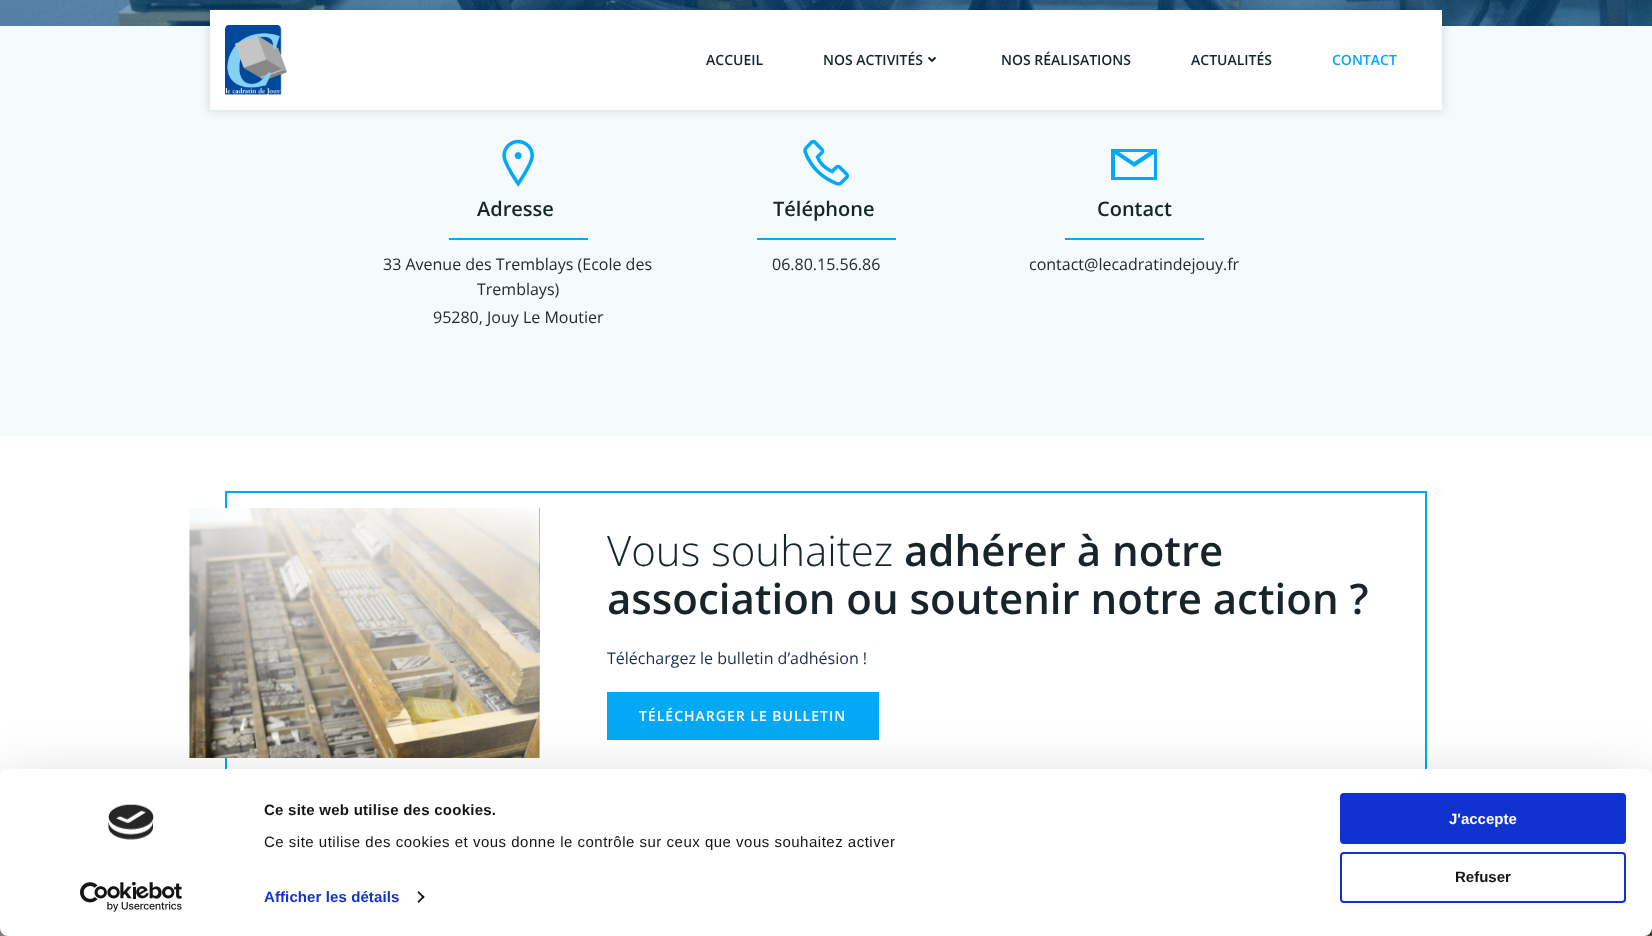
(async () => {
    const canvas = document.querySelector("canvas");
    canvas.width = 1652;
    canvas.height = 936;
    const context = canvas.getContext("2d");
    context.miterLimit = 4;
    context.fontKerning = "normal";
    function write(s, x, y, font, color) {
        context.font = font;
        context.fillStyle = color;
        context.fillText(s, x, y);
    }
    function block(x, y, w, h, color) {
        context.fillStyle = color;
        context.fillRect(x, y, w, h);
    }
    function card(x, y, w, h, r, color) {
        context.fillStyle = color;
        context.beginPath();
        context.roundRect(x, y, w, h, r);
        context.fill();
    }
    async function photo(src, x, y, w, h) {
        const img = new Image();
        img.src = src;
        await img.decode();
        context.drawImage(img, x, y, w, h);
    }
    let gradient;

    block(0, 0, 1652, 936, "rgb(255, 255, 255)");
    await photo("media/3.png", 0, 0, 1652, 26);
    block(0, 26, 1652, 410, "rgb(245, 250, 253)");
    context.fillStyle = "rgba(0, 0, 0, 0.1)";
    context.filter = "blur(5px)";
    context.beginPath();
    context.rect(208, 8, 1236, 104);
    context.fill();
    context.filter = "none";
    block(210, 10, 1232, 100, "rgb(255, 255, 255)");
    await photo("media/1.png", 225, 25, 62, 70);
    write("ACCUEIL", 706, 65, "600 14px Open Sans", "rgb(23, 37, 42)");
    write("NOS ACTIVITÉS", 823, 65, "600 14px Open Sans", "rgb(23, 37, 42)");
    await photo("media/2.png", 928, 57, 8, 5);
    write("NOS RÉALISATIONS", 1001, 65, "600 14px Open Sans", "rgb(23, 37, 42)");
    write("ACTUALITÉS", 1191, 65, "600 14px Open Sans", "rgb(23, 37, 42)");
    write("CONTACT", 1332, 65, "600 14px Open Sans", "rgb(3, 169, 250)");
    await photo("media/4.png", 502, 139, 32, 48);
    write("Adresse", 477, 216, "600 20px Open Sans", "rgb(23, 37, 42)");
    block(449, 238, 139, 2, "rgb(3, 169, 244)");
    write("33 Avenue des Tremblays (Ecole des", 383, 270, "16px Open Sans", "rgb(37, 41, 42)");
    write("Tremblays)", 477, 295, "16px Open Sans", "rgb(37, 41, 42)");
    write("95280, Jouy Le Moutier", 433, 323, "16px Open Sans", "rgb(37, 41, 42)");
    await photo("media/5.png", 803, 139, 47, 47);
    write("Téléphone", 773, 216, "600 20px Open Sans", "rgb(23, 37, 42)");
    block(757, 238, 139, 2, "rgb(3, 169, 244)");
    write("06.80.15.56.86", 772, 270, "16px Open Sans", "rgb(37, 41, 42)");
    context.fillStyle = "rgb(3, 169, 244)";
    context.beginPath();
    context.moveTo(1111, 149);
    context.lineTo(1157, 149);
    context.lineTo(1157, 180);
    context.lineTo(1111, 180);
    context.closePath();
    context.moveTo(1119, 152);
    context.lineTo(1134, 162);
    context.lineTo(1149, 152);
    context.closePath();
    context.moveTo(1115, 154);
    context.lineTo(1115, 177);
    context.lineTo(1154, 177);
    context.lineTo(1154, 154);
    context.lineTo(1134, 167);
    context.lineTo(1133, 166);
    context.closePath();
    context.fill();
    write("Contact", 1097, 216, "600 20px Open Sans", "rgb(23, 37, 42)");
    block(1065, 238, 139, 2, "rgb(3, 169, 244)");
    write("contact@lecadratindejouy.fr", 1029, 270, "16px Open Sans", "rgb(37, 41, 42)");
    context.strokeStyle = "rgb(3, 169, 244)";
    context.lineWidth = 2;
    context.strokeRect(226, 492, 1200, 282);
    await photo("media/6.png", 189, 508, 351, 250);
    gradient = context.createLinearGradient(337, 786, 391, 480);
    gradient.addColorStop(0, "rgba(255, 255, 255, 0)");
    gradient.addColorStop(1, "rgb(255, 255, 255)");
    context.fillStyle = gradient;
    context.fillRect(189, 508, 350, 250);
    write("Vous souhaitez", 607, 566, "300 42px Open Sans", "rgb(23, 37, 42)");
    write("adhérer à notre", 904, 566, "600 42px Open Sans", "rgb(23, 37, 42)");
    write("association ou soutenir notre action ?", 607, 614, "600 42px Open Sans", "rgb(23, 37, 42)");
    write("Téléchargez le bulletin d’adhésion !", 607, 664, "16px Open Sans", "rgb(27, 46, 77)");
    block(607, 692, 272, 48, "rgb(3, 169, 244)");
    context.letterSpacing = "1px";
    write("TÉLÉCHARGER LE BULLETIN", 639, 721, "600 14px Open Sans", "rgb(255, 255, 255)");
    await photo("media/7.png", 0, 928, 1652, 8);
    context.fillStyle = "rgba(0, 0, 0, 0.3)";
    context.filter = "blur(35px)";
    context.beginPath();
    context.roundRect(0, 799, 1652, 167, 8);
    context.fill();
    context.filter = "none";
    card(0, 769, 1652, 167, 8, "rgb(255, 255, 255)");
    await photo("media/8.png", 108, 804, 46, 36);
    await photo("media/9.png", 80, 882, 102, 30);
    context.letterSpacing = "0.25px";
    write("Ce site web utilise des cookies.", 264, 815, "bold 15px Liberation Sans", "rgb(20, 20, 20)");
    context.letterSpacing = "0.5px";
    write("Ce site utilise des cookies et vous donne le contrôle sur ceux que vous souhaitez activer", 264, 847, "15px Liberation Sans", "rgb(20, 20, 20)");
    context.letterSpacing = "0.1px";
    write("Afficher les détails", 264, 902, "bold 15px Liberation Sans", "rgb(16, 50, 207)");
    context.fillStyle = "rgb(20, 20, 20)";
    context.beginPath();
    context.moveTo(418.5, 891);
    context.lineTo(424.5, 897);
    context.lineTo(423.5, 898.5);
    context.lineTo(417.5, 892.5);
    context.closePath();
    context.fill();
    context.beginPath();
    context.moveTo(423.5, 895.5);
    context.lineTo(424.5, 897);
    context.lineTo(418.5, 903);
    context.lineTo(417.5, 901.5);
    context.closePath();
    context.fill();
    context.fillStyle = "rgb(16, 50, 207)";
    context.beginPath();
    context.roundRect(1341, 794, 284, 49, 3);
    context.fill();
    context.strokeStyle = "rgb(16, 50, 207)";
    context.stroke();
    context.letterSpacing = "0px";
    write("J'accepte", 1449, 824, "bold 15px Liberation Sans", "rgb(255, 255, 255)");
    context.beginPath();
    context.roundRect(1341, 853, 284, 49, 3);
    context.stroke();
    write("Refuser", 1455, 882, "bold 15px Liberation Sans", "rgb(20, 20, 20)");
})();
